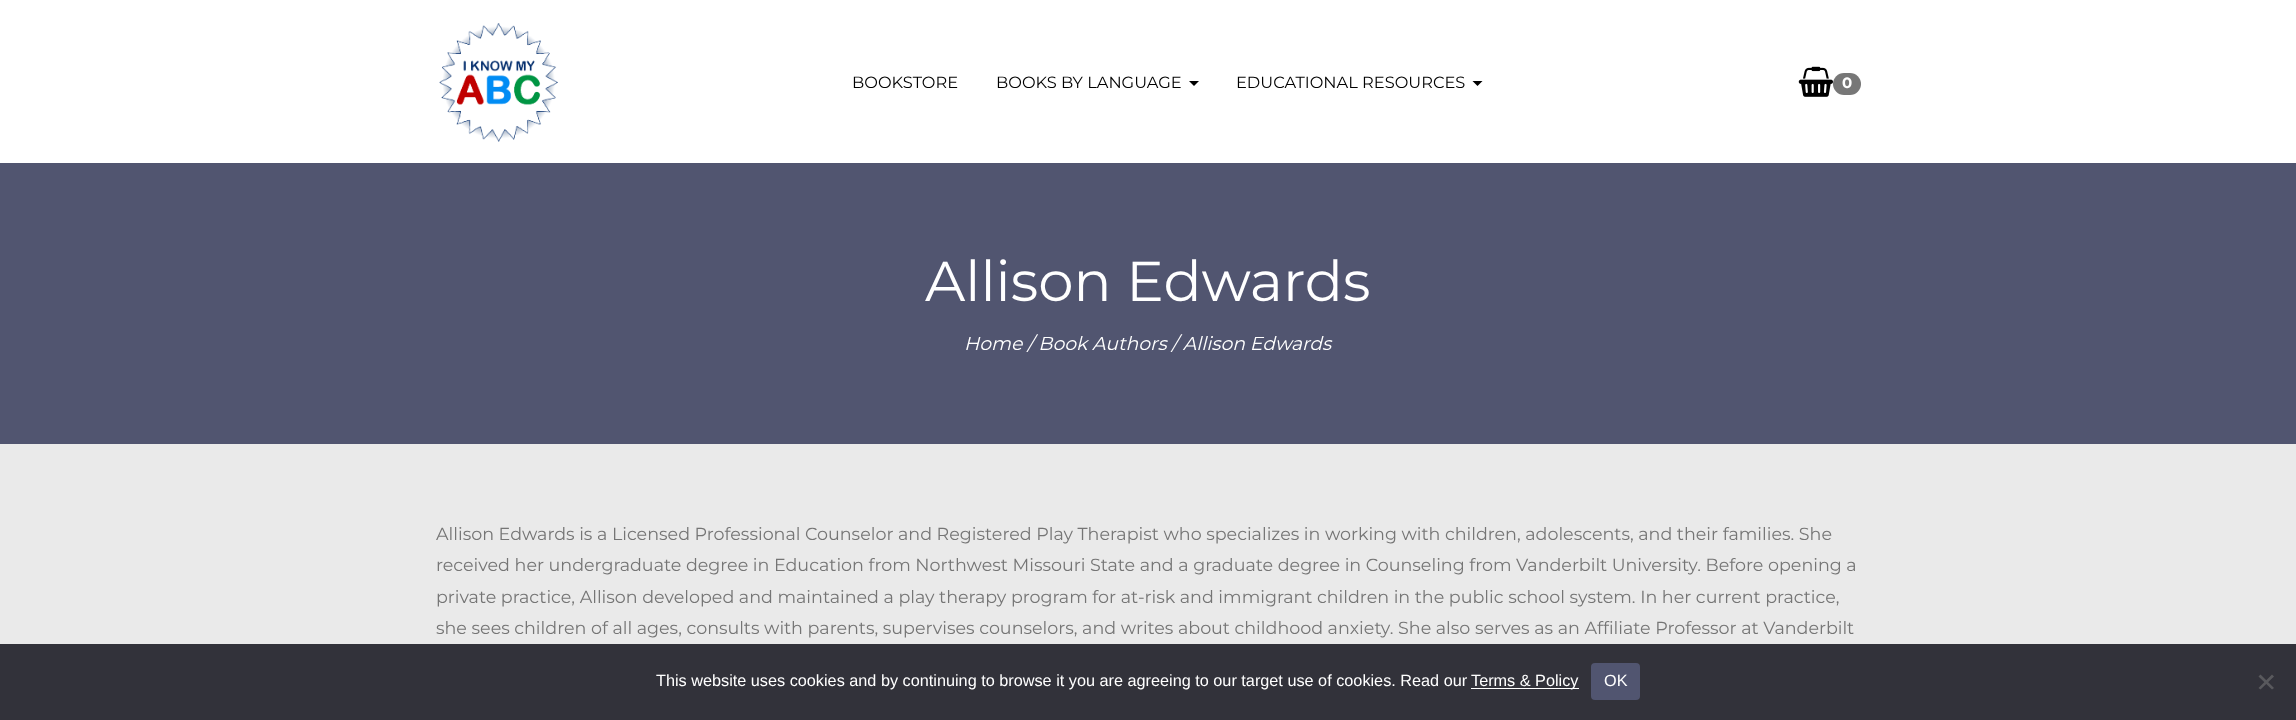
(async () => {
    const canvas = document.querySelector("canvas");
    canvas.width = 2296;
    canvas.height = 720;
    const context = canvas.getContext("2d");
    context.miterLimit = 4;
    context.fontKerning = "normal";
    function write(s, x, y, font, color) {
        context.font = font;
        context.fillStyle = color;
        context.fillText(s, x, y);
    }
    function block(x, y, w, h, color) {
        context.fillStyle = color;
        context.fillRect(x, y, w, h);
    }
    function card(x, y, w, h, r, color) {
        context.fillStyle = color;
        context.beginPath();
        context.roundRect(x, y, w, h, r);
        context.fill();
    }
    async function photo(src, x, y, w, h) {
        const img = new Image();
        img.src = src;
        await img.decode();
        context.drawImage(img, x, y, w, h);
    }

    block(0, 0, 2296, 720, "rgb(234, 234, 234)");
    block(0, 0, 2296, 163, "rgb(255, 255, 255)");
    await photo("media/1.png", 439, 23, 119, 119);
    write("BOOKSTORE", 852, 88, "16.25px Montserrat", "rgb(0, 0, 0)");
    write("BOOKS BY LANGUAGE", 996, 88, "16.25px Montserrat", "rgb(0, 0, 0)");
    context.beginPath();
    context.moveTo(1189, 81);
    context.lineTo(1199, 81);
    context.lineTo(1194, 86);
    context.closePath();
    context.fill();
    write("EDUCATIONAL RESOURCES", 1236, 88, "16.25px Montserrat", "rgb(0, 0, 0)");
    context.beginPath();
    context.moveTo(1472.5, 81);
    context.lineTo(1482.5, 81);
    context.lineTo(1477.5, 86);
    context.closePath();
    context.fill();
    await photo("media/2.png", 1798, 66, 35, 31);
    card(1833, 73, 28, 22, 11, "rgb(119, 119, 119)");
    write("0", 1842, 88, "bold 15px Montserrat", "rgb(255, 255, 255)");
    block(0, 163, 2296, 281, "rgb(81, 85, 112)");
    write("Allison Edwards", 925, 301, "56.25px Montserrat", "rgb(255, 255, 255)");
    write("Home / Book Authors / Allison Edwards", 964, 350, "italic 18.75px Montserrat", "rgb(255, 255, 255)");
    write("Allison Edwards is a Licensed Professional Counselor and Registered Play Therapist who specializes in working with children, adolescents, and their families. She", 436, 540, "17.5px Montserrat", "rgb(117, 117, 117)");
    write("received her undergraduate degree in Education from Northwest Missouri State and a graduate degree in Counseling from Vanderbilt University. Before opening a", 436, 571, "17.5px Montserrat", "rgb(117, 117, 117)");
    write("private practice, Allison developed and maintained a play therapy program for at-risk and immigrant children in the public school system. In her current practice,", 436, 603, "17.5px Montserrat", "rgb(117, 117, 117)");
    write("she sees children of all ages, consults with parents, supervises counselors, and writes about childhood anxiety. She also serves as an Affiliate Professor at Vanderbilt", 436, 634, "17.5px Montserrat", "rgb(117, 117, 117)");
    block(0, 644, 2296, 76, "rgb(50, 50, 58)");
    write("This website uses cookies and by continuing to browse it you are agreeing to our target use of cookies. Read our", 656, 686, "16.25px Liberation Sans", "rgb(255, 255, 255)");
    block(1471, 688, 108, 1, "rgb(255, 255, 255)");
    write("Terms & Policy", 1471, 686, "16.25px Liberation Sans", "rgb(255, 255, 255)");
    card(1591, 663, 49, 37, 4, "rgb(81, 85, 112)");
    write("OK", 1604, 686, "16.25px Liberation Sans", "rgb(255, 255, 255)");
    context.fillStyle = "rgb(89, 89, 93)";
    context.beginPath();
    context.moveTo(2272, 674.5);
    context.lineTo(2274, 676.5);
    context.lineTo(2260.5, 689.5);
    context.lineTo(2258.5, 688);
    context.closePath();
    context.fill();
    context.beginPath();
    context.moveTo(2258.5, 676.5);
    context.lineTo(2260.5, 674.5);
    context.lineTo(2274, 688);
    context.lineTo(2272, 689.5);
    context.closePath();
    context.fill();
})();
